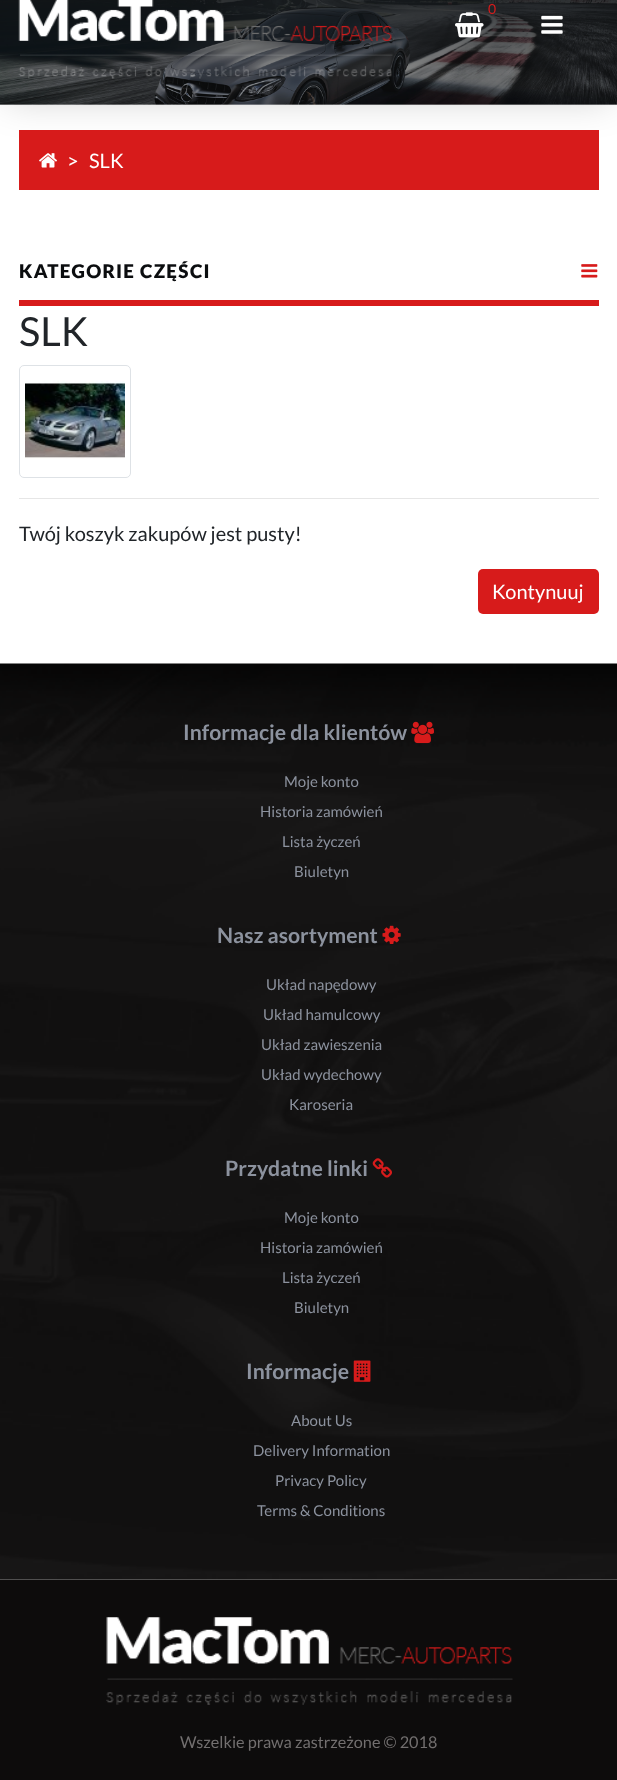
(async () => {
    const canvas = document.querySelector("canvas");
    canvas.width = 617;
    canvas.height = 1780;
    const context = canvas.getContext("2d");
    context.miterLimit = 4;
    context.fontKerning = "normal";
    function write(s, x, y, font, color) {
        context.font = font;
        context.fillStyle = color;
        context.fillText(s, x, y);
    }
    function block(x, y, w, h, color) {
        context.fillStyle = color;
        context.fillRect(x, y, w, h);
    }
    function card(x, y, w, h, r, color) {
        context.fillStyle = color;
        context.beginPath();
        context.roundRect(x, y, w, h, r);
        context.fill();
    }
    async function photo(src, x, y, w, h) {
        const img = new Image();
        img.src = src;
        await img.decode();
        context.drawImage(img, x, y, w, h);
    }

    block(0, 0, 617, 1780, "rgb(255, 255, 255)");
    context.fillStyle = "rgba(0, 0, 0, 0.2)";
    context.filter = "blur(19px)";
    context.beginPath();
    context.rect(6, -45, 605, 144);
    context.fill();
    context.filter = "none";
    await photo("media/1.png", 0, 0, 617, 105);
    block(0, 104, 617, 1, "rgba(255, 255, 255, 0.1)");
    await photo("media/2.png", 18, 0, 375, 79);
    write("0", 488, 14, "14px Lato", "rgb(215, 27, 27)");
    await photo("media/3.png", 455, 12, 29, 26);
    await photo("media/4.png", 541, 15, 22, 19);
    block(19, 130, 580, 60, "rgb(215, 27, 27)");
    await photo("media/5.png", 39, 153, 18, 15);
    write(">", 67, 168, "20px Lato", "rgb(255, 255, 255)");
    write("SLK", 89, 168, "20px Lato", "rgb(255, 255, 255)");
    block(19, 300, 580, 6, "rgb(215, 27, 27)");
    context.letterSpacing = "1.25px";
    write("KATEGORIE CZĘŚCI", 19, 278, "900 18.75px Lato", "rgb(11, 13, 15)");
    await photo("media/6.png", 581, 264, 17, 14);
    context.letterSpacing = "0px";
    write("SLK", 19, 346, "40px Lato", "rgb(33, 37, 41)");
    context.beginPath();
    context.roundRect(19.5, 365.5, 111, 112, 4.5);
    context.strokeStyle = "rgb(222, 226, 230)";
    context.stroke();
    await photo("media/7.png", 25, 380, 100, 79);
    block(19, 498, 580, 1, "rgb(230, 230, 230)");
    write("Twój koszyk zakupów jest pusty!", 19, 541, "20px Lato", "rgb(33, 37, 41)");
    card(478, 569, 121, 45, 5, "rgb(215, 27, 27)");
    write("Kontynuuj", 492, 599, "20px Lato", "rgb(255, 255, 255)");
    await photo("media/8.png", 0, 663, 617, 917);
    write("Informacje dla klientów", 183, 740, "bold 21.25px Lato", "rgb(140, 146, 158)");
    await photo("media/9.png", 411, 721, 23, 23);
    write("Moje konto", 284, 787, "15px Lato", "rgb(140, 146, 158)");
    write("Historia zamówień", 260, 817, "15px Lato", "rgb(140, 146, 158)");
    write("Lista życzeń", 282, 847, "15px Lato", "rgb(140, 146, 158)");
    write("Biuletyn", 294, 877, "15px Lato", "rgb(140, 146, 158)");
    write("Nasz asortyment", 217, 943, "bold 21.25px Lato", "rgb(140, 146, 158)");
    await photo("media/10.png", 382, 925, 19, 19);
    write("Układ napędowy", 266, 990, "15px Lato", "rgb(140, 146, 158)");
    write("Układ hamulcowy", 263, 1020, "15px Lato", "rgb(140, 146, 158)");
    write("Układ zawieszenia", 261, 1050, "15px Lato", "rgb(140, 146, 158)");
    write("Układ wydechowy", 261, 1080, "15px Lato", "rgb(140, 146, 158)");
    write("Karoseria", 289, 1110, "15px Lato", "rgb(140, 146, 158)");
    write("Przydatne linki", 225, 1176, "bold 21.25px Lato", "rgb(140, 146, 158)");
    await photo("media/11.png", 372, 1158, 20, 20);
    write("Moje konto", 284, 1223, "15px Lato", "rgb(140, 146, 158)");
    write("Historia zamówień", 260, 1253, "15px Lato", "rgb(140, 146, 158)");
    write("Lista życzeń", 282, 1283, "15px Lato", "rgb(140, 146, 158)");
    write("Biuletyn", 294, 1313, "15px Lato", "rgb(140, 146, 158)");
    write("Informacje", 246, 1379, "bold 21.25px Lato", "rgb(140, 146, 158)");
    await photo("media/12.png", 353, 1360, 18, 22);
    write("About Us", 291, 1426, "15px Lato", "rgb(140, 146, 158)");
    write("Delivery Information", 253, 1456, "15px Lato", "rgb(140, 146, 158)");
    write("Privacy Policy", 275, 1486, "15px Lato", "rgb(140, 146, 158)");
    write("Terms & Conditions", 257, 1516, "15px Lato", "rgb(140, 146, 158)");
    block(0, 1580, 617, 200, "rgb(13, 12, 12)");
    await photo("media/13.png", 106, 1617, 407, 88);
    write("Wszelkie prawa zastrzeżone © 2018", 180, 1748, "16.25px Lato", "rgb(114, 111, 111)");
})();
